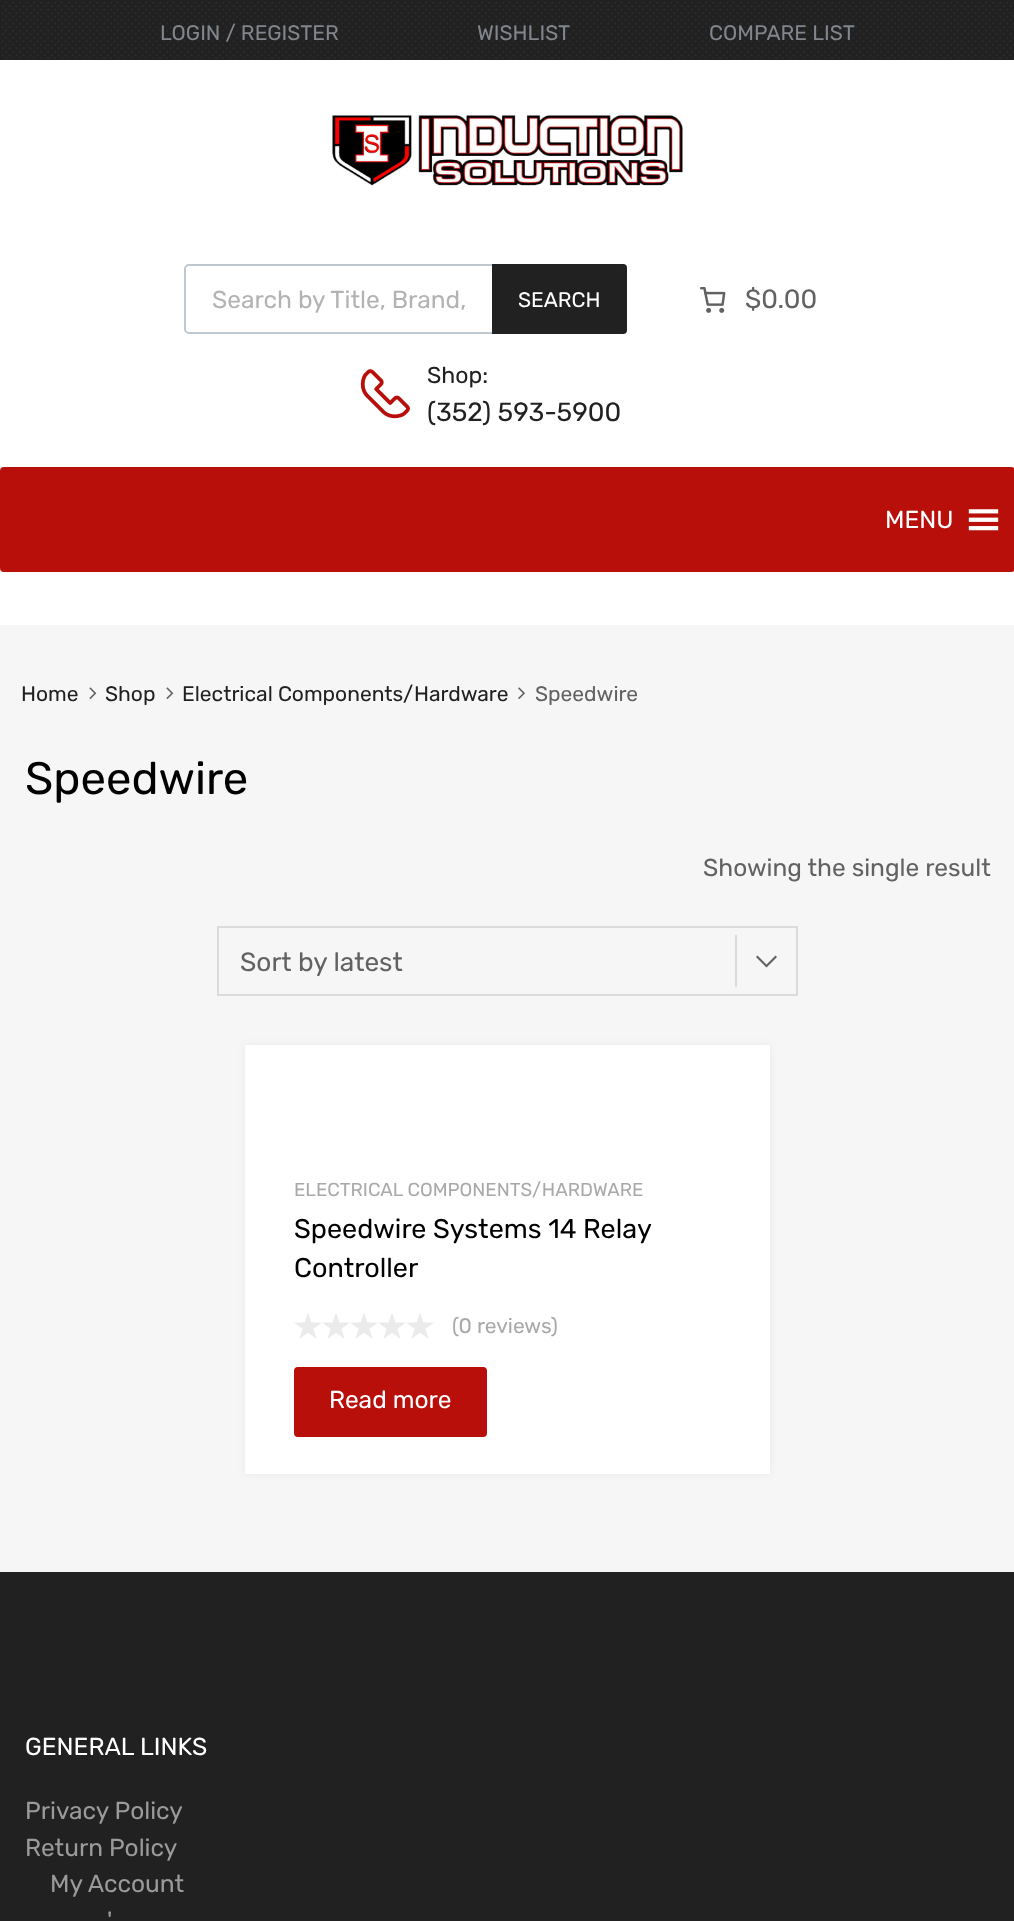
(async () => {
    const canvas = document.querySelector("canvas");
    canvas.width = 1014;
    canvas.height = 1921;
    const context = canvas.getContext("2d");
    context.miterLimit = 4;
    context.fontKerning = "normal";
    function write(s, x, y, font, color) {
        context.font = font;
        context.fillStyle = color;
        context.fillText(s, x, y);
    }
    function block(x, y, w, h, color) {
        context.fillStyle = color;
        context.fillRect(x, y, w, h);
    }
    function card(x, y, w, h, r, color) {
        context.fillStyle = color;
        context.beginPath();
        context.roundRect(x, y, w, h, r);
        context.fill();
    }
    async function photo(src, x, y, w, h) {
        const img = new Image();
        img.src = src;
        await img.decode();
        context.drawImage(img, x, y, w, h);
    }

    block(0, 0, 1014, 1921, "rgb(246, 246, 246)");
    block(0, 60, 1014, 565, "rgb(255, 255, 255)");
    block(0, 0, 1014, 60, "rgb(33, 33, 33)");
    await photo("media/1.png", 2, 2, 1012, 57);
    write("LOGIN / REGISTER", 160, 40, "300 21px Rubik", "rgb(129, 133, 140)");
    write("WISHLIST", 477, 40, "300 21px Rubik", "rgb(129, 133, 140)");
    write("COMPARE LIST", 709, 40, "300 21px Rubik", "rgb(129, 133, 140)");
    await photo("media/2.png", 332, 115, 351, 71);
    context.beginPath();
    context.roundRect(185, 265, 441, 68, 4);
    context.strokeStyle = "rgb(190, 200, 206)";
    context.lineWidth = 2;
    context.stroke();
    write("Search by Title, Brand,", 212, 308, "300 24.5px Rubik", "rgb(179, 179, 179)");
    context.fillStyle = "rgb(33, 33, 33)";
    context.beginPath();
    context.roundRect(492, 264, 135, 70, [0, 4, 4, 0]);
    context.fill();
    write("SEARCH", 518, 307, "300 21px Rubik", "rgb(255, 255, 255)");
    await photo("media/3.png", 700, 287, 26, 26);
    write("$0.00", 745, 308, "300 26.25px Rubik", "rgb(98, 98, 98)");
    await photo("media/4.png", 360, 369, 50, 50);
    write("Shop:", 427, 383, "300 23px Rubik", "rgb(33, 33, 33)");
    write("(352) 593-5900", 427, 421, "300 26.25px Rubik", "rgb(33, 33, 33)");
    card(0, 467, 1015, 105, 4, "rgb(184, 15, 10)");
    write("MENU", 885, 528, "300 24.5px Rubik", "rgb(255, 255, 255)");
    await photo("media/5.png", 968, 509, 31, 22);
    write("Home", 21, 701, "300 21px Rubik", "rgb(33, 33, 33)");
    await photo("media/6.png", 89, 687, 8, 12);
    write("Shop", 105, 701, "300 21px Rubik", "rgb(33, 33, 33)");
    await photo("media/6.png", 166, 687, 8, 12);
    write("Electrical Components/Hardware", 182, 701, "300 21px Rubik", "rgb(33, 33, 33)");
    await photo("media/7.png", 518, 687, 7, 12);
    write("Speedwire", 535, 701, "300 21px Rubik", "rgb(98, 98, 98)");
    write("Speedwire", 25, 794, "300 45.5px Rubik", "rgb(0, 0, 0)");
    write("Showing the single result", 703, 876, "300 24.5px Rubik", "rgb(98, 98, 98)");
    block(735, 935, 2, 52, "rgb(219, 219, 219)");
    context.fillStyle = "rgb(98, 98, 98)";
    context.beginPath();
    context.moveTo(756, 957);
    context.lineTo(766.5, 967.5);
    context.lineTo(777, 957);
    context.lineTo(775.5, 955.5);
    context.lineTo(766.5, 964.5);
    context.lineTo(757.5, 955.5);
    context.closePath();
    context.fill();
    context.strokeStyle = "rgb(219, 219, 219)";
    context.strokeRect(218, 927, 579, 68);
    write("Sort by latest", 240, 971, "300 26.25px Rubik", "rgb(98, 98, 98)");
    context.fillStyle = "rgba(0, 0, 0, 0.05)";
    context.filter = "blur(4.5px)";
    context.beginPath();
    context.rect(245, 1045, 525, 429);
    context.fill();
    context.filter = "none";
    block(245, 1045, 525, 429, "rgb(255, 255, 255)");
    write("ELECTRICAL COMPONENTS/HARDWARE", 294, 1196, "300 18.75px Rubik", "rgb(169, 169, 169)");
    write("Speedwire Systems 14 Relay", 294, 1238, "300 27px Rubik", "rgb(0, 0, 0)");
    write("Controller", 294, 1277, "300 27px Rubik", "rgb(0, 0, 0)");
    await photo("media/8.png", 294, 1313, 140, 26);
    write("(0 reviews)", 452, 1333, "300 21px Rubik", "rgb(169, 169, 169)");
    card(294, 1367, 193, 70, 4, "rgb(184, 15, 10)");
    write("Read more", 329, 1408, "300 24.5px Rubik", "rgb(255, 255, 255)");
    block(0, 1572, 1014, 349, "rgb(33, 33, 33)");
    write("GENERAL LINKS", 25, 1755, "300 24.5px Rubik", "rgb(255, 255, 255)");
    write("Privacy Policy", 25, 1819, "300 24.5px Rubik", "rgb(154, 154, 154)");
    write("Return Policy", 25, 1856, "300 24.5px Rubik", "rgb(154, 154, 154)");
    write("My Account", 50, 1892, "300 24.5px Rubik", "rgb(154, 154, 154)");
    write("'", 107, 1929, "300 24.5px Rubik", "rgb(154, 154, 154)");
})();
